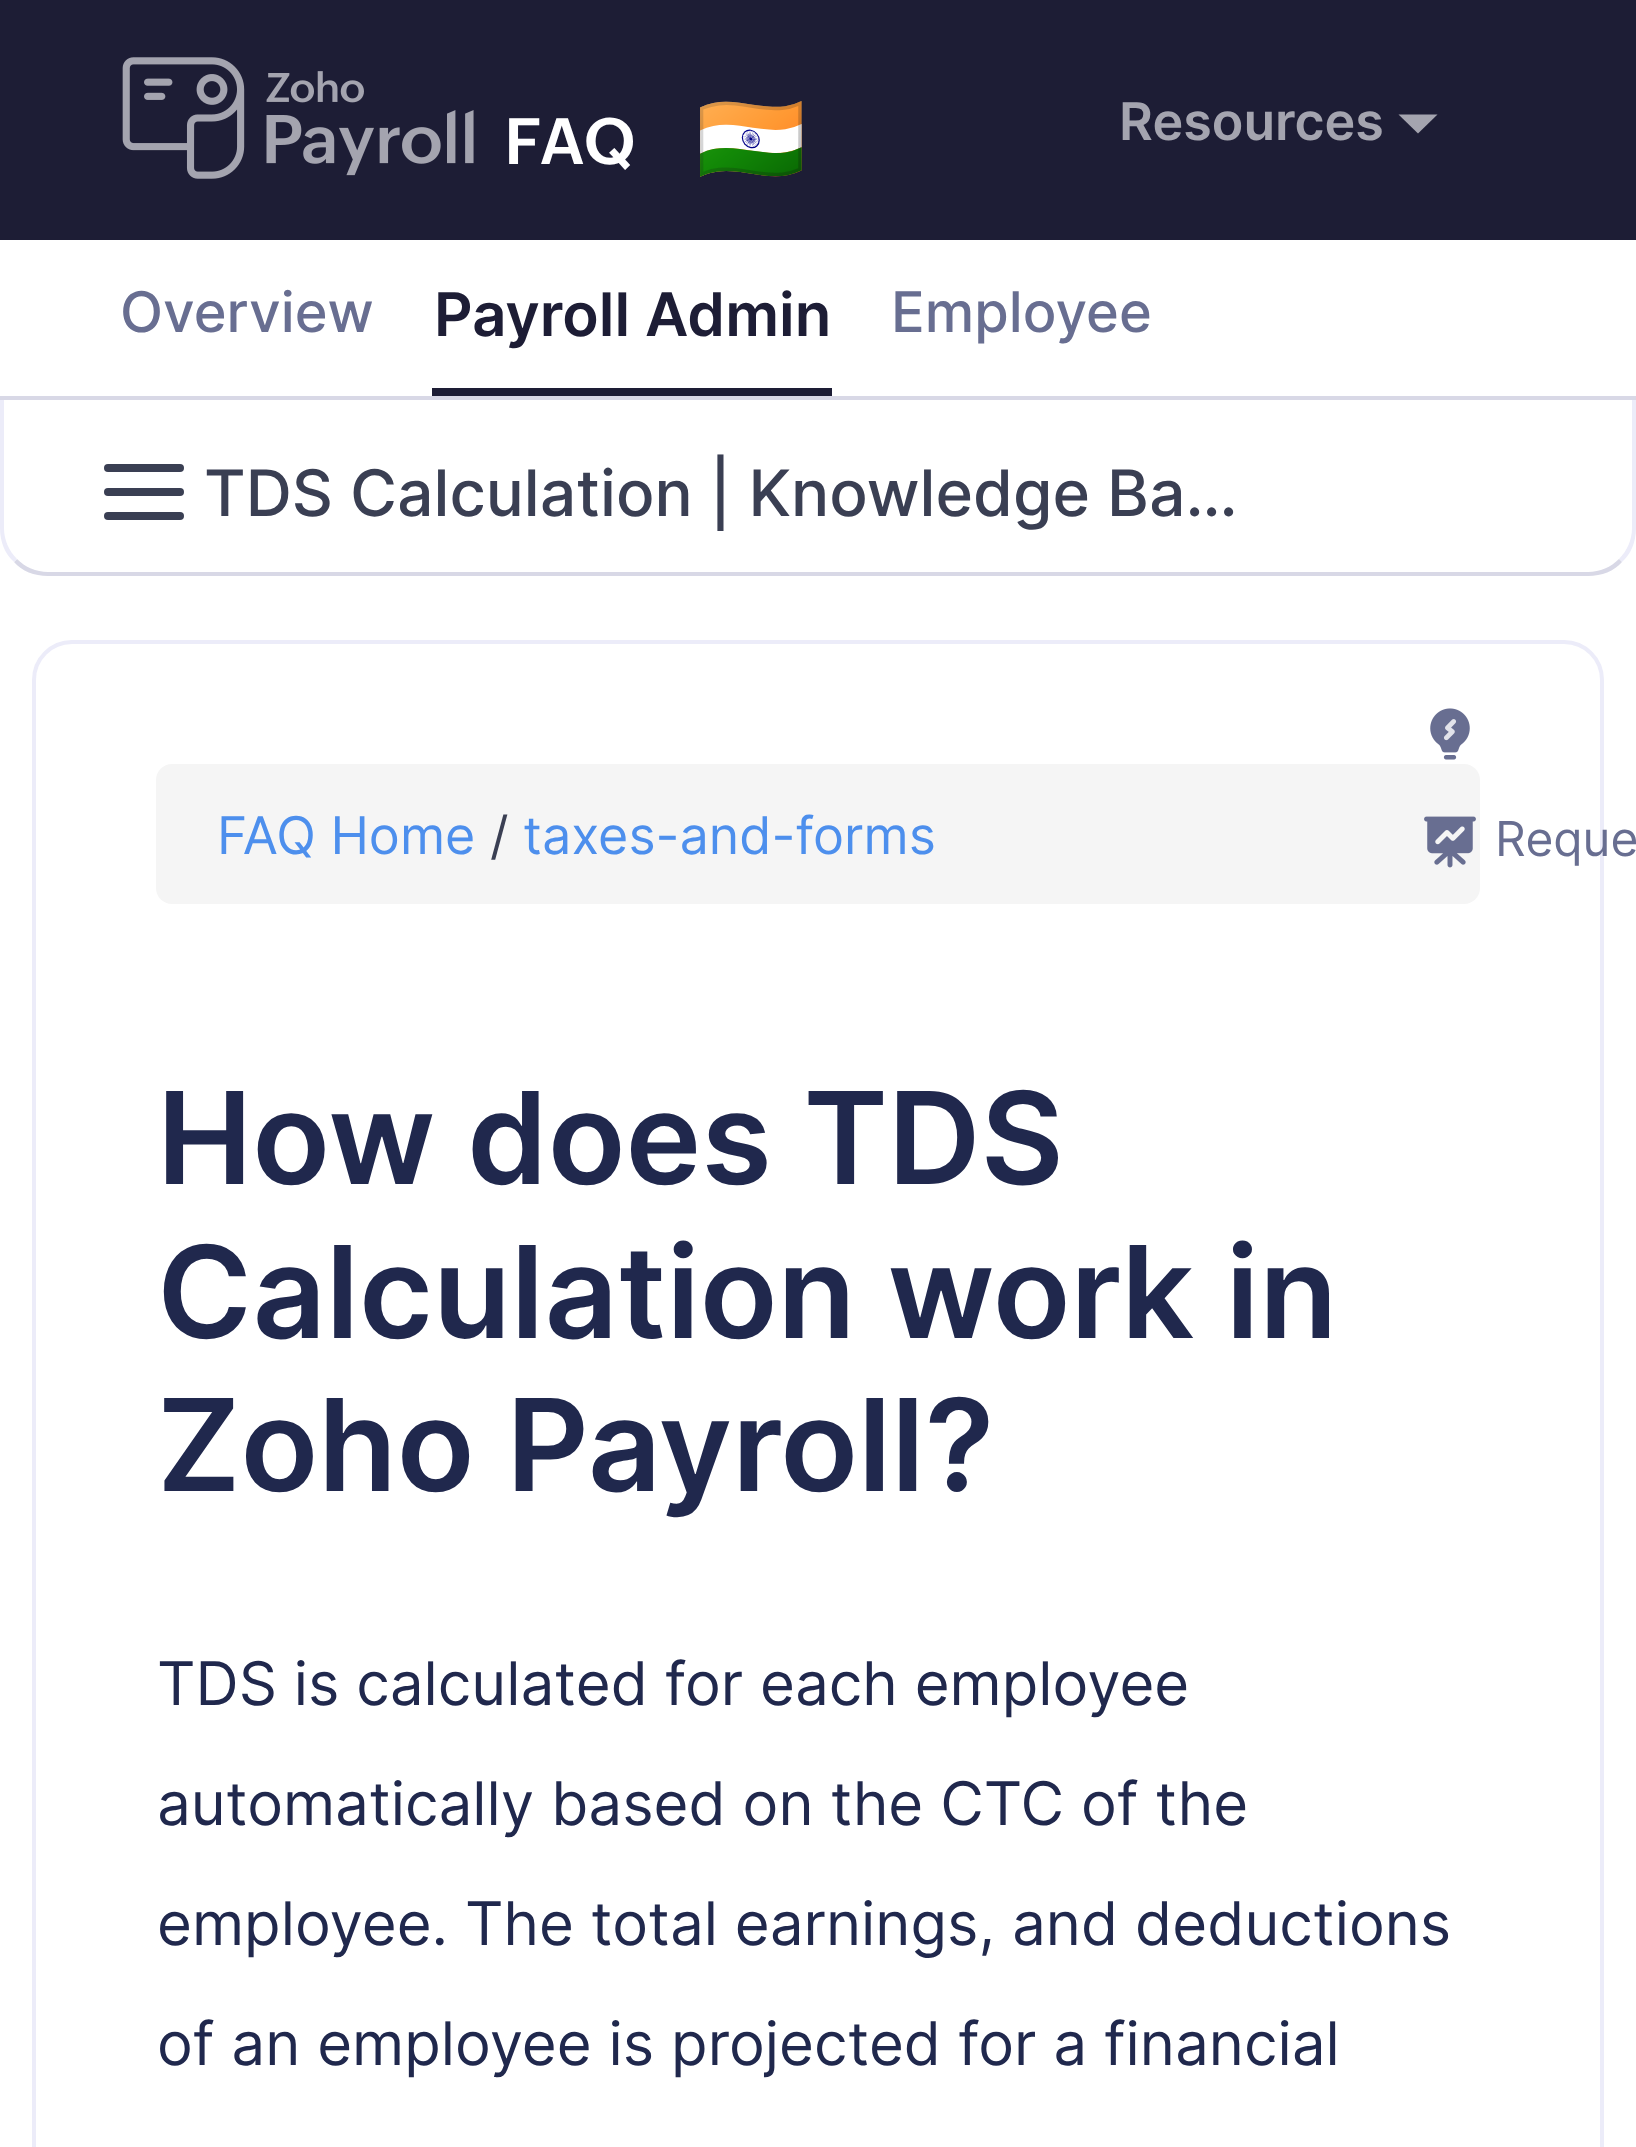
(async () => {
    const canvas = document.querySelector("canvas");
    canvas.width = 1636;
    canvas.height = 2147;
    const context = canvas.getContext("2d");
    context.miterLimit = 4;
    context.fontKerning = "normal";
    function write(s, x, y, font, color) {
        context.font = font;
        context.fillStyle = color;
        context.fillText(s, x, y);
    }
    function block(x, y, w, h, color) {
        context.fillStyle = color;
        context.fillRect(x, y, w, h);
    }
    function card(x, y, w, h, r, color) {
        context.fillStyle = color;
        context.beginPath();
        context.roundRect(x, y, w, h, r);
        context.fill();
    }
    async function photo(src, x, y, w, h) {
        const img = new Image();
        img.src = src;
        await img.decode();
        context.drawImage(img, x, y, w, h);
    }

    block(0, 0, 1636, 2147, "rgb(255, 255, 255)");
    block(0, 0, 1636, 240, "rgb(29, 29, 53)");
    await photo("media/1.png", 122, 57, 352, 122);
    write("FAQ", 504, 164, "600 64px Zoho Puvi", "rgb(255, 255, 255)");
    write("🇮🇳", 696, 169, "88px Noto Color Emoji", "rgb(255, 255, 255)");
    write("Resources", 1119, 140, "600 52px Inter", "rgb(164, 164, 175)");
    context.beginPath();
    context.moveTo(1398.5, 114.5);
    context.lineTo(1437.5, 114.5);
    context.lineTo(1418, 133.5);
    context.closePath();
    context.fill();
    context.fillStyle = "rgb(236, 236, 249)";
    context.beginPath();
    context.moveTo(1636, 396);
    context.lineTo(1632, 396);
    context.lineTo(1632, 528);
    context.bezierCurveTo(1632, 540, 1627, 551, 1619, 559);
    context.lineTo(1622, 562);
    context.bezierCurveTo(1631, 554, 1636, 542, 1636, 528);
    context.closePath();
    context.fill();
    context.fillStyle = "rgb(216, 216, 230)";
    context.beginPath();
    context.moveTo(48, 576);
    context.lineTo(1588, 576);
    context.bezierCurveTo(1602, 576, 1614, 571, 1622, 562);
    context.lineTo(1619, 559);
    context.bezierCurveTo(1611, 567, 1600, 572, 1588, 572);
    context.lineTo(48, 572);
    context.bezierCurveTo(36, 572, 25, 567, 17, 559);
    context.lineTo(14, 562);
    context.bezierCurveTo(22, 571, 34, 576, 48, 576);
    context.closePath();
    context.fill();
    context.fillStyle = "rgb(236, 236, 249)";
    context.beginPath();
    context.moveTo(0, 396);
    context.lineTo(4, 396);
    context.lineTo(4, 528);
    context.bezierCurveTo(4, 540, 9, 551, 17, 559);
    context.lineTo(14, 562);
    context.bezierCurveTo(5, 554, 0, 542, 0, 528);
    context.closePath();
    context.fill();
    block(0, 396, 1636, 4, "rgb(216, 216, 230)");
    write("Overview", 120, 332, "500 56px Inter", "rgb(104, 110, 145)");
    block(432, 388, 400, 8, "rgb(29, 29, 53)");
    write("Payroll Admin", 434, 336, "600 60px Inter", "rgb(29, 29, 53)");
    write("Employee", 891, 332, "500 56px Inter", "rgb(104, 110, 145)");
    card(104, 464, 80, 8, 4, "rgb(58, 63, 83)");
    card(104, 488, 80, 8, 4, "rgb(58, 63, 83)");
    card(104, 512, 80, 8, 4, "rgb(58, 63, 83)");
    write("TDS Calculation | Knowledge Ba…", 204, 516, "500 64px Inter", "rgb(58, 63, 83)");
    context.beginPath();
    context.roundRect(34, 642, 1568, 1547, 38);
    context.strokeStyle = "rgb(236, 236, 249)";
    context.lineWidth = 4;
    context.stroke();
    card(156, 764, 1324, 140, 16, "rgb(245, 245, 245)");
    write("FAQ Home", 217, 854, "52px Inter", "rgb(77, 143, 237)");
    write("/", 490, 854, "52px Inter", "rgb(58, 63, 83)");
    write("taxes-and-forms", 523, 854, "52px Inter", "rgb(77, 143, 237)");
    write("How does TDS", 157, 1184, "600 128px Inter", "rgb(32, 40, 77)");
    write("Calculation work in", 157, 1338, "600 128px Inter", "rgb(32, 40, 77)");
    write("Zoho Payroll?", 157, 1491, "600 128px Inter", "rgb(32, 40, 77)");
    write("TDS is calculated for each employee", 157, 1705, "60px Inter", "rgb(32, 40, 77)");
    write("automatically based on the CTC of the", 157, 1825, "60px Inter", "rgb(32, 40, 77)");
    write("employee. The total earnings, and deductions", 157, 1945, "60px Inter", "rgb(32, 40, 77)");
    write("of an employee is projected for a financial", 157, 2065, "60px Inter", "rgb(32, 40, 77)");
    await photo("media/2.png", 1430, 708, 40, 52);
    await photo("media/3.png", 1424, 816, 52, 52);
    write("Reque", 1495, 856, "48px Inter", "rgb(104, 110, 145)");
})();
